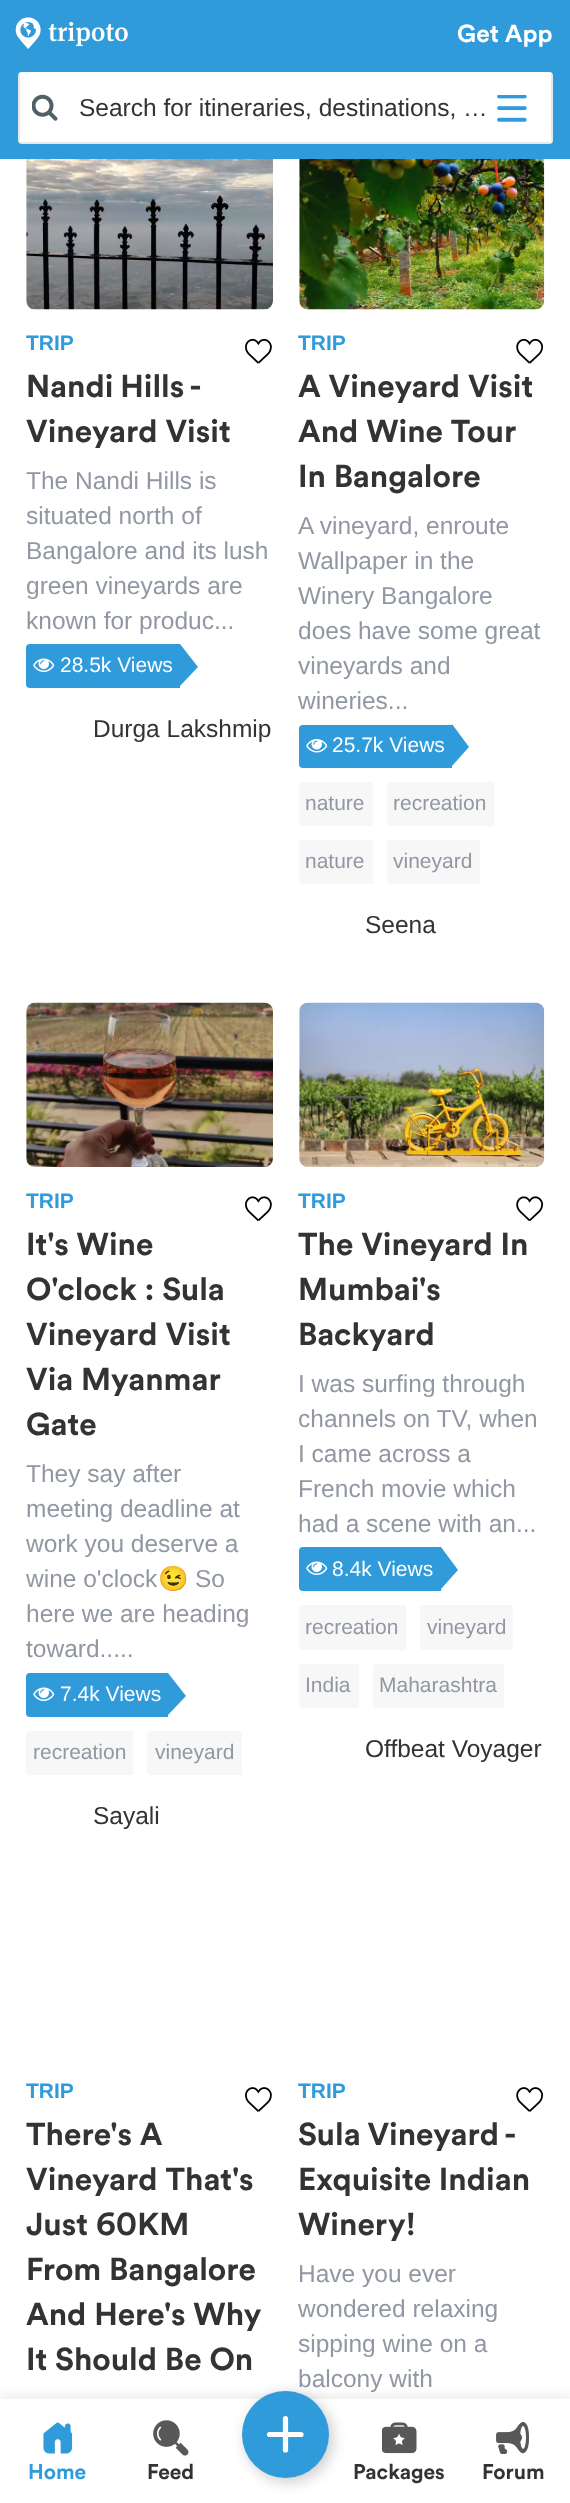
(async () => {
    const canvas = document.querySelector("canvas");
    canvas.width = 570;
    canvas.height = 2503;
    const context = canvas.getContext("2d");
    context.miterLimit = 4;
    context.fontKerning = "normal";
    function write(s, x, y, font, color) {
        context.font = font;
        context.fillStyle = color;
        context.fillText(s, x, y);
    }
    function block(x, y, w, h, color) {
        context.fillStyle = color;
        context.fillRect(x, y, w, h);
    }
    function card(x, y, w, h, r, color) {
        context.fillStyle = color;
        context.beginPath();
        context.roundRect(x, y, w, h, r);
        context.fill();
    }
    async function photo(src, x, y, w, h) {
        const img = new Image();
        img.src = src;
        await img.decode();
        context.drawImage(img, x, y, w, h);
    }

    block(0, 0, 570, 2503, "rgb(255, 255, 255)");
    block(0, 0, 570, 159, "rgb(47, 155, 219)");
    await photo("media/1.png", 15, 17, 113, 32);
    write("Get App", 457, 42, "bold 24.5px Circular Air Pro", "rgb(255, 255, 255)");
    card(18, 72, 535, 72, 4, "rgb(255, 255, 255)");
    await photo("media/2.png", 32, 94, 26, 27);
    block(551, 74, 2, 68, "rgba(0, 0, 0, 0.09)");
    block(19, 142, 532, 2, "rgba(0, 0, 0, 0.09)");
    block(18, 74, 2, 68, "rgba(0, 0, 0, 0.09)");
    write("Search for itineraries, destinations, …", 79, 116, "24.5px Liberation Sans", "rgb(51, 51, 51)");
    await photo("media/3.png", 497, 95, 30, 27);
    await photo("media/4.png", 26, 159, 247, 151);
    write("TRIP", 26, 350, "bold 21px Liberation Sans", "rgb(47, 155, 219)");
    await photo("media/5.png", 245, 338, 27, 26);
    context.wordSpacing = "-1px";
    write("Nandi Hills -", 26, 397, "bold 31.5px Circular Air Pro", "rgb(51, 51, 51)");
    context.wordSpacing = "0px";
    write("Vineyard Visit", 26, 442, "bold 31.5px Circular Air Pro", "rgb(51, 51, 51)");
    write("The Nandi Hills is", 26, 489, "24.5px Liberation Sans", "rgb(145, 151, 163)");
    write("situated north of", 26, 524, "24.5px Liberation Sans", "rgb(145, 151, 163)");
    write("Bangalore and its lush", 26, 559, "24.5px Liberation Sans", "rgb(145, 151, 163)");
    write("green vineyards are", 26, 594, "24.5px Liberation Sans", "rgb(145, 151, 163)");
    write("known for produc...", 26, 629, "24.5px Liberation Sans", "rgb(145, 151, 163)");
    context.fillStyle = "rgb(47, 155, 219)";
    context.beginPath();
    context.roundRect(26, 644, 154, 44, [4, 0, 0, 4]);
    context.fill();
    await photo("media/6.png", 33, 658, 22, 14);
    write("28.5k Views", 60, 672, "21px Liberation Sans", "rgb(255, 255, 255)");
    context.fillStyle = "rgb(47, 155, 219)";
    context.beginPath();
    context.moveTo(180, 686);
    context.lineTo(180, 644);
    context.lineTo(198, 667);
    context.closePath();
    context.fill();
    write("Durga Lakshmip", 93, 737, "24.5px Liberation Sans", "rgb(51, 51, 51)");
    await photo("media/7.png", 299, 159, 246, 151);
    write("TRIP", 298, 350, "bold 21px Liberation Sans", "rgb(47, 155, 219)");
    await photo("media/8.png", 516, 338, 28, 26);
    write("A Vineyard Visit", 298, 397, "bold 31.5px Circular Air Pro", "rgb(51, 51, 51)");
    write("And Wine Tour", 298, 442, "bold 31.5px Circular Air Pro", "rgb(51, 51, 51)");
    write("In Bangalore", 298, 487, "bold 31.5px Circular Air Pro", "rgb(51, 51, 51)");
    write("A vineyard, enroute", 298, 534, "24.5px Liberation Sans", "rgb(145, 151, 163)");
    write("Wallpaper in the", 298, 569, "24.5px Liberation Sans", "rgb(145, 151, 163)");
    write("Winery Bangalore", 298, 604, "24.5px Liberation Sans", "rgb(145, 151, 163)");
    write("does have some great", 298, 639, "24.5px Liberation Sans", "rgb(145, 151, 163)");
    write("vineyards and", 298, 674, "24.5px Liberation Sans", "rgb(145, 151, 163)");
    write("wineries...", 298, 709, "24.5px Liberation Sans", "rgb(145, 151, 163)");
    context.fillStyle = "rgb(47, 155, 219)";
    context.beginPath();
    context.roundRect(299, 725, 153, 43, [4, 0, 0, 4]);
    context.fill();
    await photo("media/9.png", 306, 739, 22, 14);
    write("25.7k Views", 332, 752, "21px Liberation Sans", "rgb(255, 255, 255)");
    context.fillStyle = "rgb(47, 155, 219)";
    context.beginPath();
    context.moveTo(452, 766);
    context.lineTo(452, 724);
    context.lineTo(469, 747);
    context.closePath();
    context.fill();
    context.fillStyle = "rgb(247, 247, 247)";
    context.beginPath();
    context.roundRect(299, 782, 74, 44, [4, 0, 0, 4]);
    context.fill();
    write("nature", 305, 810, "21px Liberation Sans", "rgb(145, 151, 163)");
    context.fillStyle = "rgb(247, 247, 247)";
    context.beginPath();
    context.roundRect(387, 782, 107, 44, [4, 0, 0, 4]);
    context.fill();
    write("recreation", 393, 810, "21px Liberation Sans", "rgb(145, 151, 163)");
    context.fillStyle = "rgb(247, 247, 247)";
    context.beginPath();
    context.roundRect(299, 840, 74, 44, [4, 0, 0, 4]);
    context.fill();
    write("nature", 305, 868, "21px Liberation Sans", "rgb(145, 151, 163)");
    context.fillStyle = "rgb(247, 247, 247)";
    context.beginPath();
    context.roundRect(387, 840, 93, 44, [4, 0, 0, 4]);
    context.fill();
    write("vineyard", 393, 868, "21px Liberation Sans", "rgb(145, 151, 163)");
    write("Seena", 365, 933, "24.5px Liberation Sans", "rgb(51, 51, 51)");
    await photo("media/10.png", 26, 1002, 247, 165);
    write("TRIP", 26, 1208, "bold 21px Liberation Sans", "rgb(47, 155, 219)");
    await photo("media/11.png", 245, 1196, 27, 26);
    write("It's Wine", 26, 1255, "bold 31.5px Circular Air Pro", "rgb(51, 51, 51)");
    write("O'clock : Sula", 26, 1300, "bold 31.5px Circular Air Pro", "rgb(51, 51, 51)");
    write("Vineyard Visit", 26, 1345, "bold 31.5px Circular Air Pro", "rgb(51, 51, 51)");
    write("Via Myanmar", 26, 1390, "bold 31.5px Circular Air Pro", "rgb(51, 51, 51)");
    write("Gate", 26, 1435, "bold 31.5px Circular Air Pro", "rgb(51, 51, 51)");
    write("They say after", 26, 1482, "24.5px Liberation Sans", "rgb(145, 151, 163)");
    write("meeting deadline at", 26, 1517, "24.5px Liberation Sans", "rgb(145, 151, 163)");
    write("work you deserve a", 26, 1552, "24.5px Liberation Sans", "rgb(145, 151, 163)");
    write("wine o'clock", 26, 1587, "24.5px Liberation Sans", "rgb(145, 151, 163)");
    write("😉", 158, 1587, "24.5px Noto Color Emoji", "rgb(145, 151, 163)");
    write("So", 195, 1587, "24.5px Liberation Sans", "rgb(145, 151, 163)");
    write("here we are heading", 26, 1622, "24.5px Liberation Sans", "rgb(145, 151, 163)");
    write("toward.....", 26, 1657, "24.5px Liberation Sans", "rgb(145, 151, 163)");
    context.fillStyle = "rgb(47, 155, 219)";
    context.beginPath();
    context.roundRect(26, 1673, 142, 44, [4, 0, 0, 4]);
    context.fill();
    await photo("media/6.png", 33, 1687, 22, 14);
    write("7.4k Views", 60, 1701, "21px Liberation Sans", "rgb(255, 255, 255)");
    context.fillStyle = "rgb(47, 155, 219)";
    context.beginPath();
    context.moveTo(168, 1715);
    context.lineTo(168, 1673);
    context.lineTo(186, 1696);
    context.closePath();
    context.fill();
    context.fillStyle = "rgb(247, 247, 247)";
    context.beginPath();
    context.roundRect(26, 1731, 107, 44, [4, 0, 0, 4]);
    context.fill();
    write("recreation", 33, 1759, "21px Liberation Sans", "rgb(145, 151, 163)");
    context.fillStyle = "rgb(247, 247, 247)";
    context.beginPath();
    context.roundRect(147, 1731, 95, 44, [4, 0, 0, 4]);
    context.fill();
    write("vineyard", 155, 1759, "21px Liberation Sans", "rgb(145, 151, 163)");
    write("Sayali", 93, 1824, "24.5px Liberation Sans", "rgb(51, 51, 51)");
    await photo("media/12.png", 299, 1002, 246, 165);
    write("TRIP", 298, 1208, "bold 21px Liberation Sans", "rgb(47, 155, 219)");
    await photo("media/13.png", 516, 1196, 28, 26);
    write("The Vineyard In", 298, 1255, "bold 31.5px Circular Air Pro", "rgb(51, 51, 51)");
    write("Mumbai's", 298, 1300, "bold 31.5px Circular Air Pro", "rgb(51, 51, 51)");
    write("Backyard", 298, 1345, "bold 31.5px Circular Air Pro", "rgb(51, 51, 51)");
    write("I was surfing through", 298, 1392, "24.5px Liberation Sans", "rgb(145, 151, 163)");
    write("channels on TV, when", 298, 1427, "24.5px Liberation Sans", "rgb(145, 151, 163)");
    write("I came across a", 298, 1462, "24.5px Liberation Sans", "rgb(145, 151, 163)");
    write("French movie which", 298, 1497, "24.5px Liberation Sans", "rgb(145, 151, 163)");
    write("had a scene with an...", 298, 1532, "24.5px Liberation Sans", "rgb(145, 151, 163)");
    context.fillStyle = "rgb(47, 155, 219)";
    context.beginPath();
    context.roundRect(299, 1547, 142, 44, [4, 0, 0, 4]);
    context.fill();
    await photo("media/6.png", 306, 1561, 22, 14);
    write("8.4k Views", 332, 1576, "21px Liberation Sans", "rgb(255, 255, 255)");
    context.fillStyle = "rgb(47, 155, 219)";
    context.beginPath();
    context.moveTo(441, 1589);
    context.lineTo(441, 1547);
    context.lineTo(458, 1570);
    context.closePath();
    context.fill();
    context.fillStyle = "rgb(247, 247, 247)";
    context.beginPath();
    context.roundRect(299, 1605, 107, 45, [4, 0, 0, 4]);
    context.fill();
    write("recreation", 305, 1634, "21px Liberation Sans", "rgb(145, 151, 163)");
    context.fillStyle = "rgb(247, 247, 247)";
    context.beginPath();
    context.roundRect(420, 1605, 93, 45, [4, 0, 0, 4]);
    context.fill();
    write("vineyard", 427, 1634, "21px Liberation Sans", "rgb(145, 151, 163)");
    context.fillStyle = "rgb(247, 247, 247)";
    context.beginPath();
    context.roundRect(299, 1664, 60, 44, [4, 0, 0, 4]);
    context.fill();
    write("India", 305, 1692, "21px Liberation Sans", "rgb(145, 151, 163)");
    context.fillStyle = "rgb(247, 247, 247)";
    context.beginPath();
    context.roundRect(373, 1664, 131, 44, [4, 0, 0, 4]);
    context.fill();
    write("Maharashtra", 379, 1692, "21px Liberation Sans", "rgb(145, 151, 163)");
    write("Offbeat Voyager", 365, 1757, "24.5px Liberation Sans", "rgb(51, 51, 51)");
    write("TRIP", 26, 2098, "bold 21px Liberation Sans", "rgb(47, 155, 219)");
    await photo("media/14.png", 245, 2087, 27, 25);
    write("There's A", 26, 2145, "bold 31.5px Circular Air Pro", "rgb(51, 51, 51)");
    write("Vineyard That's", 26, 2190, "bold 31.5px Circular Air Pro", "rgb(51, 51, 51)");
    write("Just 60KM", 26, 2235, "bold 31.5px Circular Air Pro", "rgb(51, 51, 51)");
    write("From Bangalore", 26, 2280, "bold 31.5px Circular Air Pro", "rgb(51, 51, 51)");
    write("And Here's Why", 26, 2325, "bold 31.5px Circular Air Pro", "rgb(51, 51, 51)");
    write("It Should Be On", 26, 2370, "bold 31.5px Circular Air Pro", "rgb(51, 51, 51)");
    write("TRIP", 298, 2098, "bold 21px Liberation Sans", "rgb(47, 155, 219)");
    await photo("media/15.png", 516, 2087, 28, 25);
    context.wordSpacing = "-1px";
    write("Sula Vineyard -", 298, 2145, "bold 31.5px Circular Air Pro", "rgb(51, 51, 51)");
    context.wordSpacing = "0px";
    write("Exquisite Indian", 298, 2190, "bold 31.5px Circular Air Pro", "rgb(51, 51, 51)");
    write("Winery!", 298, 2235, "bold 31.5px Circular Air Pro", "rgb(51, 51, 51)");
    write("Have you ever", 298, 2282, "24.5px Liberation Sans", "rgb(145, 151, 163)");
    write("wondered relaxing", 298, 2317, "24.5px Liberation Sans", "rgb(145, 151, 163)");
    write("sipping wine on a", 298, 2352, "24.5px Liberation Sans", "rgb(145, 151, 163)");
    write("balcony with", 298, 2387, "24.5px Liberation Sans", "rgb(145, 151, 163)");
    context.fillStyle = "rgba(0, 0, 0, 0.08)";
    context.filter = "blur(6px)";
    context.beginPath();
    context.rect(0, 2396, 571, 105);
    context.fill();
    context.filter = "none";
    block(0, 2399, 570, 104, "rgb(255, 255, 255)");
    await photo("media/16.png", 43, 2422, 30, 32);
    write("Home", 28, 2479, "bold 21px Circular Air Pro", "rgb(47, 155, 219)");
    await photo("media/17.png", 153, 2420, 36, 36);
    write("Feed", 147, 2479, "bold 21px Circular Air Pro", "rgb(51, 51, 51)");
    context.fillStyle = "rgba(0, 0, 0, 0.2)";
    context.filter = "blur(7px)";
    context.beginPath();
    context.roundRect(245, 2394, 88, 88, 44);
    context.fill();
    context.filter = "none";
    context.fillStyle = "rgb(47, 155, 219)";
    context.beginPath();
    context.arc(285.5, 2434.5, 43.5, 0, Math.PI * 2);
    context.fill();
    context.beginPath();
    context.moveTo(285.5, 2418.5);
    context.lineTo(285.5, 2450);
    context.moveTo(301, 2434.5);
    context.lineTo(269.5, 2434.5);
    context.strokeStyle = "rgb(255, 255, 255)";
    context.lineWidth = 5.2;
    context.lineCap = "round";
    context.stroke();
    await photo("media/18.png", 382, 2422, 35, 32);
    write("Packages", 353, 2479, "bold 21px Circular Air Pro", "rgb(51, 51, 51)");
    await photo("media/19.png", 496, 2421, 33, 33);
    write("Forum", 482, 2479, "bold 21px Circular Air Pro", "rgb(51, 51, 51)");
})();
